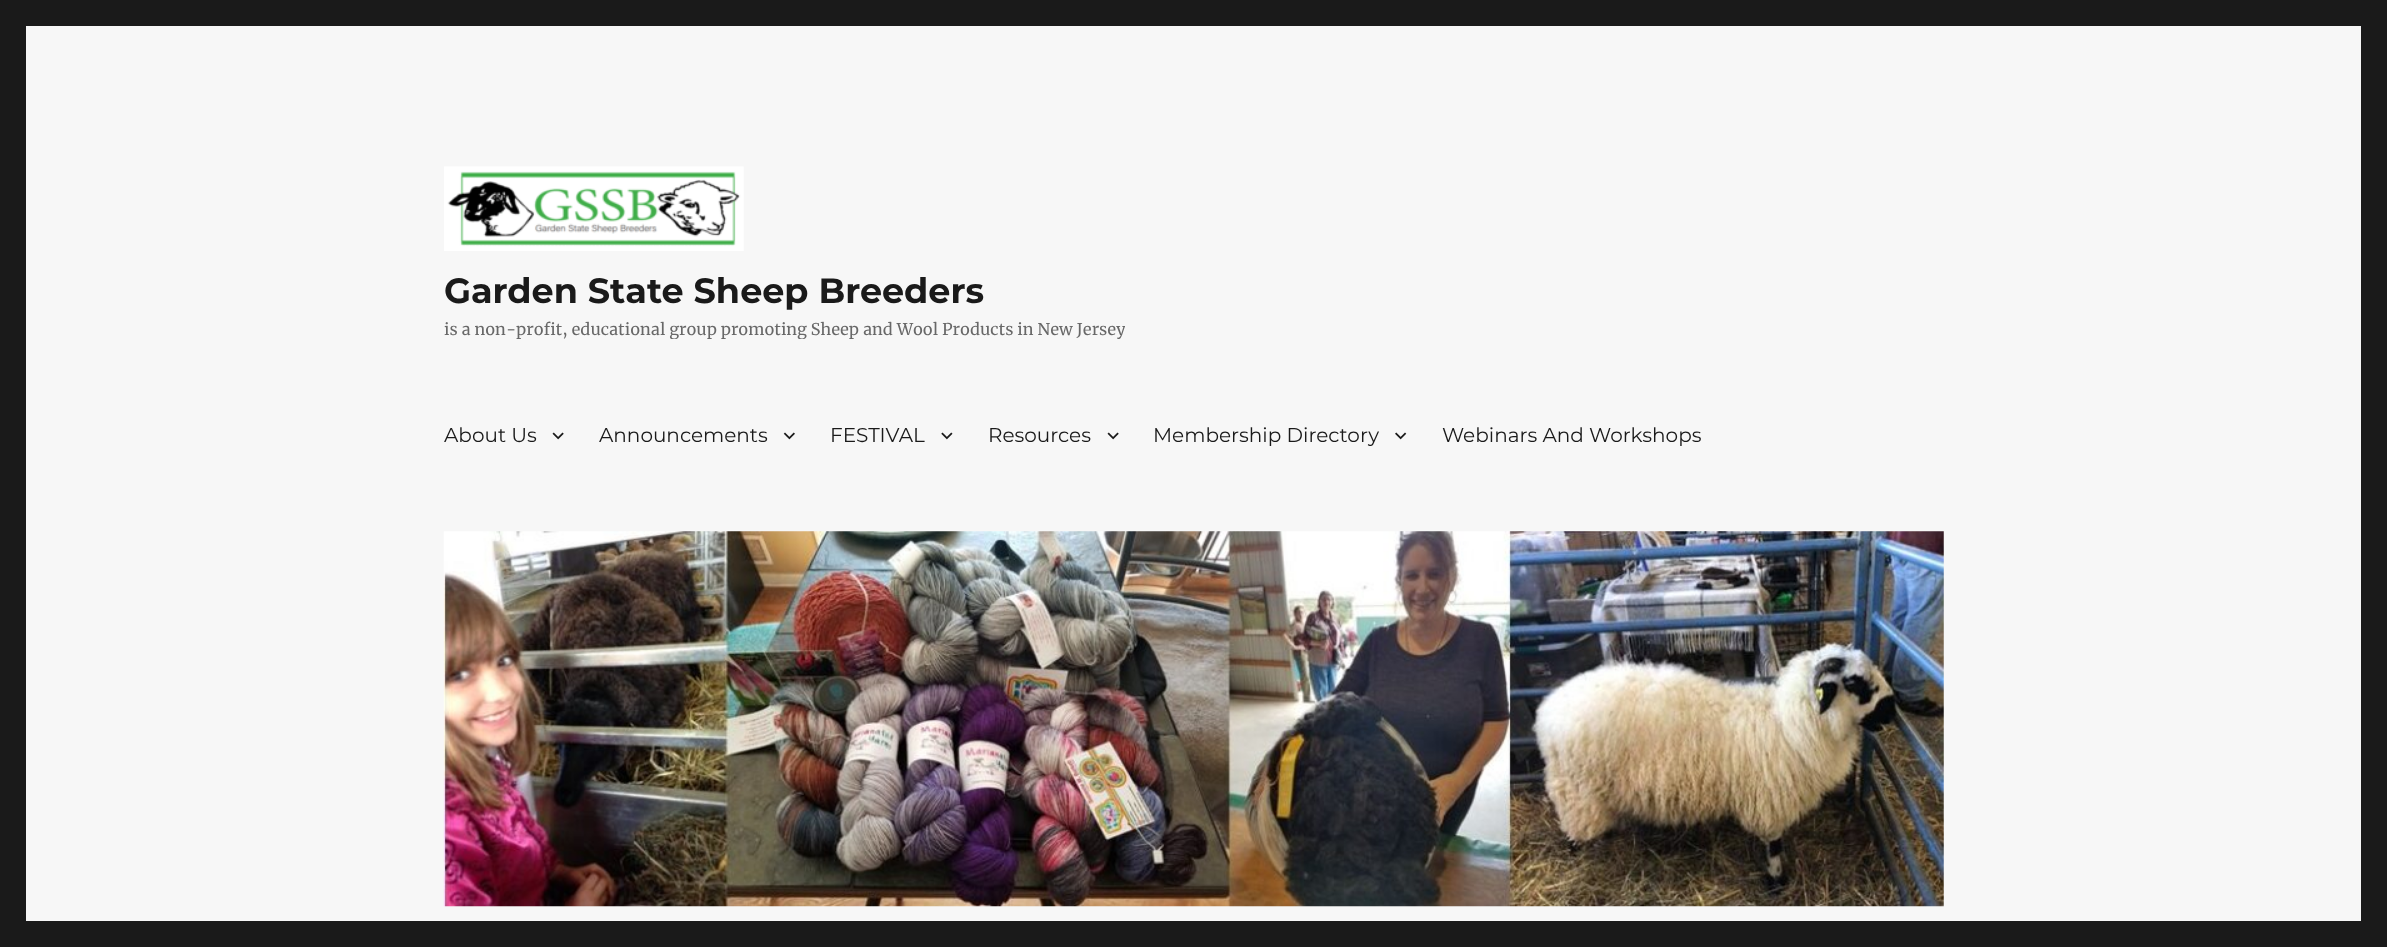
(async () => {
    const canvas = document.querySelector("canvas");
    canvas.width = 2387;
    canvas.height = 947;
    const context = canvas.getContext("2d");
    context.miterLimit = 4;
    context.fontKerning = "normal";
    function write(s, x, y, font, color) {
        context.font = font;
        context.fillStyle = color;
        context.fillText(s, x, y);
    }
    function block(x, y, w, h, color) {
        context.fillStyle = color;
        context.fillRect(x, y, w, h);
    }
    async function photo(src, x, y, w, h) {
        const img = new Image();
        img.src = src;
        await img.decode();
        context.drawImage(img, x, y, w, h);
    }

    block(0, 0, 2387, 947, "rgb(26, 26, 26)");
    block(26, 26, 2335, 895, "rgb(247, 247, 247)");
    await photo("media/1.png", 444, 166, 300, 85);
    write("Garden State Sheep Breeders", 444, 303, "100 35px Montserrat", "rgb(26, 26, 26)");
    context.save();
    context.beginPath();
    context.rect(444, 166, 681, 173);
    context.clip();
    write("is a non-profit, educational group promoting Sheep and Wool Products in New Jersey", 444, 335, "16.25px Merriweather", "rgb(104, 104, 104)");
    context.restore();
    write("About Us", 444, 442, "100 20px 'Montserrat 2'", "rgb(26, 26, 26)");
    await photo("media/2.png", 552, 432, 12, 8);
    write("Announcements", 599, 442, "100 20px 'Montserrat 2'", "rgb(26, 26, 26)");
    await photo("media/3.png", 783, 432, 12, 8);
    write("FESTIVAL", 830, 442, "100 20px 'Montserrat 2'", "rgb(26, 26, 26)");
    await photo("media/4.png", 941, 432, 12, 8);
    write("Resources", 988, 442, "100 20px 'Montserrat 2'", "rgb(26, 26, 26)");
    await photo("media/2.png", 1107, 432, 12, 8);
    write("Membership Directory", 1153, 442, "100 20px 'Montserrat 2'", "rgb(26, 26, 26)");
    await photo("media/5.png", 1395, 432, 12, 8);
    write("Webinars And Workshops", 1442, 442, "100 20px 'Montserrat 2'", "rgb(26, 26, 26)");
    await photo("media/6.png", 443, 531, 1501, 376);
})();
